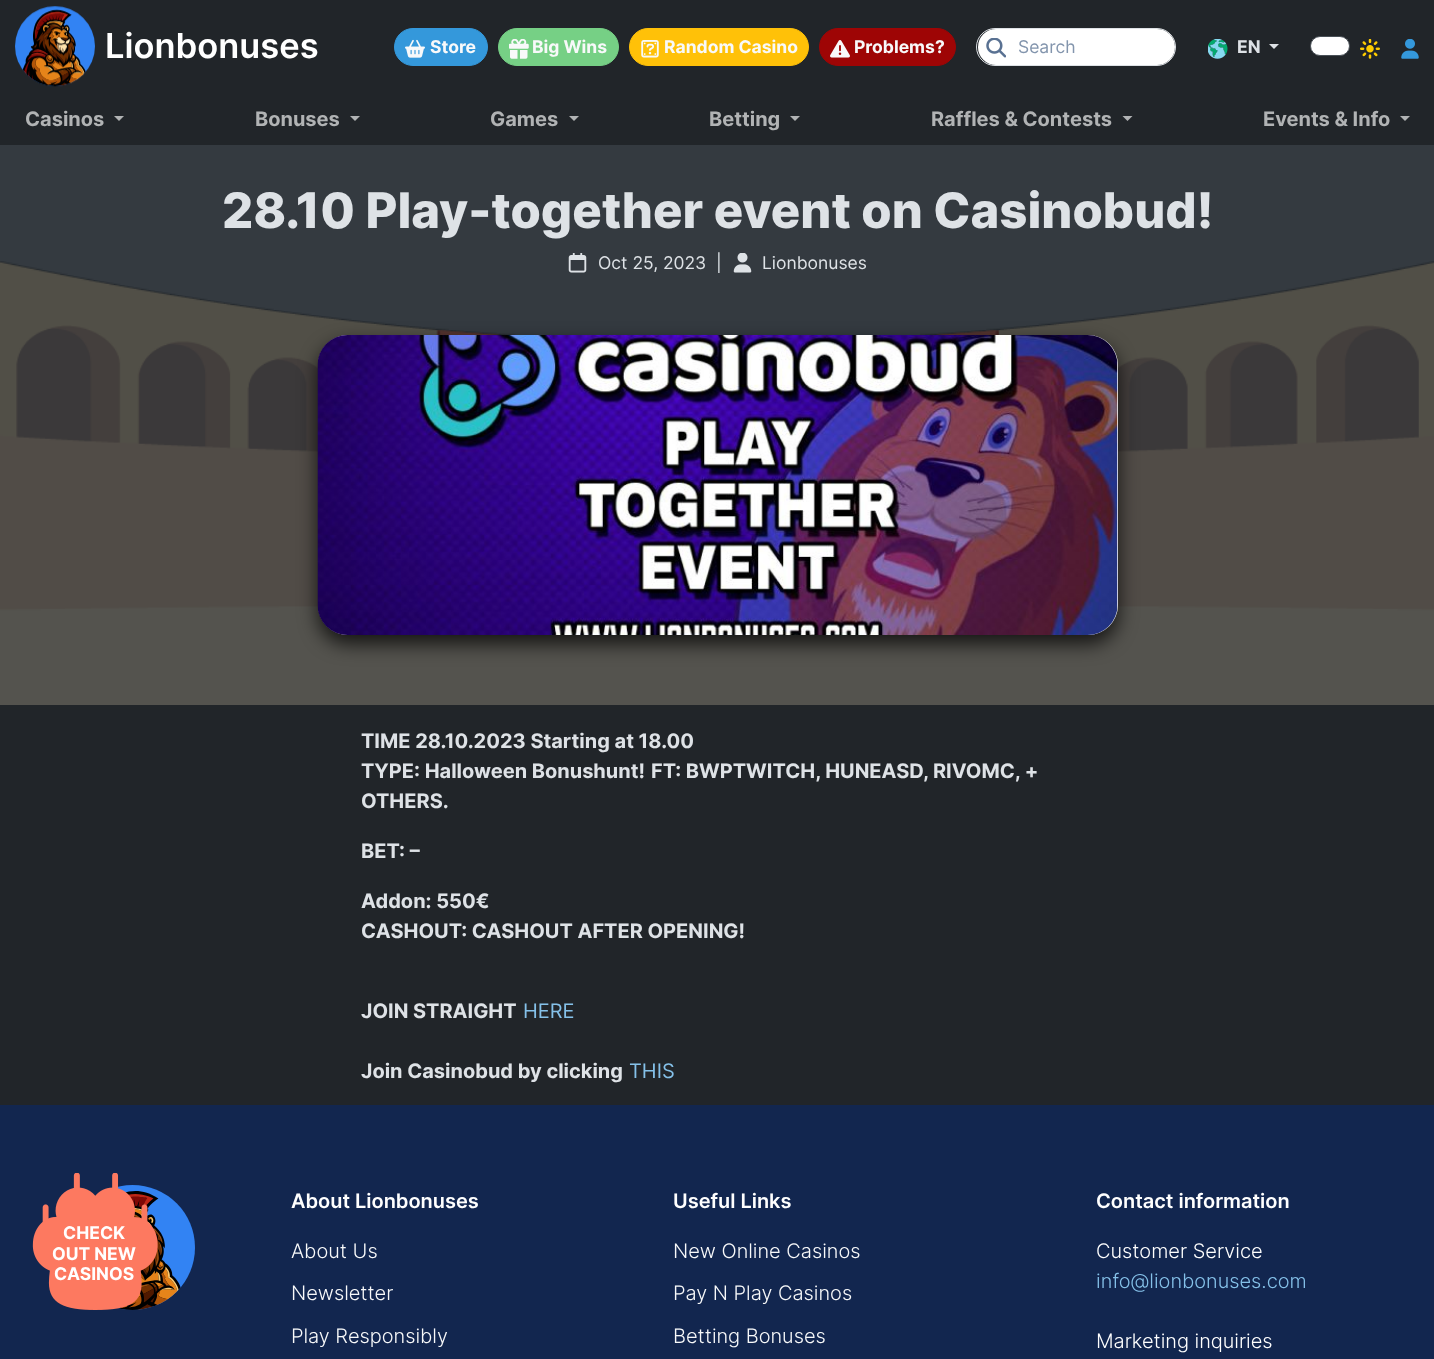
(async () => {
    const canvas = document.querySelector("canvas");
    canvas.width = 1434;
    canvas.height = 1359;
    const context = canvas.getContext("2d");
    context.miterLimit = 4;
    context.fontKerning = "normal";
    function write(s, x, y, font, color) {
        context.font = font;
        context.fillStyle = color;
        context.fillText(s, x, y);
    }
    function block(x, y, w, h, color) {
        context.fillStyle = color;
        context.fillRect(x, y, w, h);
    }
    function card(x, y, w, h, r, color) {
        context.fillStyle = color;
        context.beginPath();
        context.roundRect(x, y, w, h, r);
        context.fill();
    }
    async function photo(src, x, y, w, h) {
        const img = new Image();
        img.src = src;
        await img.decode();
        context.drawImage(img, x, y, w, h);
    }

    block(0, 0, 1434, 1359, "rgb(33, 37, 41)");
    await photo("media/1.png", 15, 6, 80, 81);
    write("Lionbonuses", 105, 58, "600 34.5px Inter", "rgb(255, 255, 255)");
    context.fillStyle = "rgb(52, 152, 219)";
    context.beginPath();
    context.roundRect(394.5, 28.5, 93, 37, 18.5);
    context.fill();
    context.strokeStyle = "rgb(52, 152, 219)";
    context.stroke();
    await photo("media/2.png", 405, 39, 20, 19);
    write("Store", 430, 53, "bold 17.5px Inter", "rgb(248, 249, 250)");
    context.fillStyle = "rgb(118, 208, 133)";
    context.beginPath();
    context.roundRect(498.5, 28.5, 120, 37, 18.5);
    context.fill();
    context.strokeStyle = "rgb(118, 208, 133)";
    context.stroke();
    await photo("media/3.png", 509, 39, 20, 20);
    write("Big Wins", 532, 53, "bold 17.5px Inter", "rgb(248, 249, 250)");
    context.fillStyle = "rgb(255, 193, 8)";
    context.beginPath();
    context.roundRect(629.5, 28.5, 179, 37, 18.5);
    context.fill();
    context.strokeStyle = "rgb(255, 193, 8)";
    context.stroke();
    await photo("media/4.png", 641, 40, 18, 18);
    write("Random Casino", 664, 53, "bold 17.5px Inter", "rgb(248, 249, 250)");
    context.fillStyle = "rgb(158, 5, 5)";
    context.beginPath();
    context.roundRect(819.5, 28.5, 136, 37, 18.5);
    context.fill();
    context.strokeStyle = "rgb(158, 5, 5)";
    context.stroke();
    await photo("media/5.png", 830, 40, 20, 18);
    write("Problems?", 854, 53, "bold 17.5px Inter", "rgb(248, 249, 250)");
    card(978, 29, 197, 36, 18, "rgb(255, 255, 255)");
    context.beginPath();
    context.roundRect(976.5, 28.5, 199, 37, 18.5);
    context.strokeStyle = "rgb(222, 226, 230)";
    context.stroke();
    await photo("media/6.png", 986, 38, 20, 20);
    write("Search", 1018, 53, "17.5px Inter", "rgb(131, 149, 173)");
    await photo("media/7.png", 1208, 39, 20, 20);
    write("EN", 1237, 53, "bold 17.5px Inter", "rgb(222, 226, 230)");
    context.beginPath();
    context.moveTo(1269, 44);
    context.lineTo(1279, 44);
    context.lineTo(1274, 49);
    context.closePath();
    context.fill();
    context.fillStyle = "rgb(255, 255, 255)";
    context.beginPath();
    context.roundRect(1310.5, 36.5, 39, 19, 9.5);
    context.fill();
    context.strokeStyle = "rgb(73, 80, 87)";
    context.stroke();
    await photo("media/8.png", 1360, 39, 20, 20);
    await photo("media/9.png", 1401, 39, 18, 20);
    write("Casinos", 25, 126, "bold 20px Inter", "rgb(177, 179, 180)");
    context.beginPath();
    context.moveTo(114, 116);
    context.lineTo(124, 116);
    context.lineTo(119, 121);
    context.closePath();
    context.fill();
    write("Bonuses", 255, 126, "bold 20px Inter", "rgb(177, 179, 180)");
    context.beginPath();
    context.moveTo(350, 116);
    context.lineTo(360, 116);
    context.lineTo(355, 121);
    context.closePath();
    context.fill();
    write("Games", 490, 126, "bold 20px Inter", "rgb(177, 179, 180)");
    context.beginPath();
    context.moveTo(569, 116);
    context.lineTo(579, 116);
    context.lineTo(574, 121);
    context.closePath();
    context.fill();
    write("Betting", 709, 126, "bold 20px Inter", "rgb(177, 179, 180)");
    context.beginPath();
    context.moveTo(790, 116);
    context.lineTo(800, 116);
    context.lineTo(795, 121);
    context.closePath();
    context.fill();
    write("Raffles & Contests", 931, 126, "bold 20px Inter", "rgb(177, 179, 180)");
    context.beginPath();
    context.moveTo(1122.5, 116);
    context.lineTo(1132.5, 116);
    context.lineTo(1127.5, 121);
    context.closePath();
    context.fill();
    write("Events & Info", 1263, 126, "bold 20px Inter", "rgb(177, 179, 180)");
    context.beginPath();
    context.moveTo(1400, 116);
    context.lineTo(1410, 116);
    context.lineTo(1405, 121);
    context.closePath();
    context.fill();
    block(0, 145, 1434, 190, "rgb(52, 58, 64)");
    await photo("media/10.png", 0, 261, 1434, 444);
    write("28.10 Play-together event on Casinobud!", 222, 228, "800 49px Inter", "rgb(222, 226, 230)");
    await photo("media/11.png", 568, 253, 19, 20);
    write("Oct 25, 2023", 598, 269, "17.5px Inter", "rgb(222, 226, 230)");
    write("|", 716, 269, "17.5px Inter", "rgb(222, 226, 230)");
    await photo("media/12.png", 733, 253, 19, 20);
    write("Lionbonuses", 762, 269, "17.5px Inter", "rgb(222, 226, 230)");
    context.fillStyle = "rgba(0, 0, 0, 0.75)";
    context.filter = "blur(9.5px)";
    context.beginPath();
    context.roundRect(318, 344, 800, 300, 30);
    context.fill();
    context.filter = "none";
    card(318, 335, 800, 300, 30, "rgb(255, 255, 255)");
    await photo("media/13.png", 317, 335, 801, 300);
    write("TIME 28.10.2023 Starting at 18.00", 361, 748, "bold 20px Inter", "rgb(222, 226, 230)");
    write("TYPE: Halloween Bonushunt!", 361, 778, "bold 20px Inter", "rgb(222, 226, 230)");
    write("FT: BWPTWITCH, HUNEASD, RIVOMC, +", 651, 778, "bold 20px Inter", "rgb(222, 226, 230)");
    write("OTHERS.", 361, 808, "bold 20px Inter", "rgb(222, 226, 230)");
    write("BET: –", 361, 858, "bold 20px Inter", "rgb(222, 226, 230)");
    write("Addon: 550€", 361, 908, "bold 20px Inter", "rgb(222, 226, 230)");
    write("CASHOUT: CASHOUT AFTER OPENING!", 361, 938, "bold 20px Inter", "rgb(222, 226, 230)");
    write("JOIN STRAIGHT", 361, 1018, "bold 20px Inter", "rgb(222, 226, 230)");
    write("HERE", 523, 1018, "20px Inter", "rgb(133, 193, 233)");
    write("Join Casinobud by clicking", 361, 1078, "bold 20px Inter", "rgb(222, 226, 230)");
    write("THIS", 629, 1078, "20px Inter", "rgb(133, 193, 233)");
    block(0, 1105, 1434, 254, "rgb(18, 38, 79)");
    await photo("media/15.png", 117, 1185, 78, 125);
    await photo("media/14.png", 32, 1173, 126, 137);
    write("CHECK", 63, 1239, "bold 17.5px Inter", "rgb(255, 255, 255)");
    write("OUT NEW", 52, 1260, "bold 17.5px Inter", "rgb(255, 255, 255)");
    write("CASINOS", 54, 1280, "bold 17.5px Inter", "rgb(255, 255, 255)");
    write("About Lionbonuses", 291, 1208, "600 20px Inter", "rgb(255, 255, 255)");
    write("About Us", 291, 1258, "300 20px Inter", "rgb(248, 249, 250)");
    write("Newsletter", 291, 1300, "300 20px Inter", "rgb(248, 249, 250)");
    write("Play Responsibly", 291, 1343, "300 20px Inter", "rgb(248, 249, 250)");
    write("Useful Links", 673, 1208, "600 20px Inter", "rgb(255, 255, 255)");
    write("New Online Casinos", 673, 1258, "300 20px Inter", "rgb(248, 249, 250)");
    write("Pay N Play Casinos", 673, 1300, "300 20px Inter", "rgb(248, 249, 250)");
    write("Betting Bonuses", 673, 1343, "300 20px Inter", "rgb(248, 249, 250)");
    write("Contact information", 1096, 1208, "600 20px Inter", "rgb(255, 255, 255)");
    write("Customer Service", 1096, 1258, "300 20px Inter", "rgb(255, 255, 255)");
    write("info@lionbonuses.com", 1096, 1288, "300 20px Inter", "rgb(133, 193, 233)");
    write("Marketing inquiries", 1096, 1348, "300 20px Inter", "rgb(255, 255, 255)");
})();
